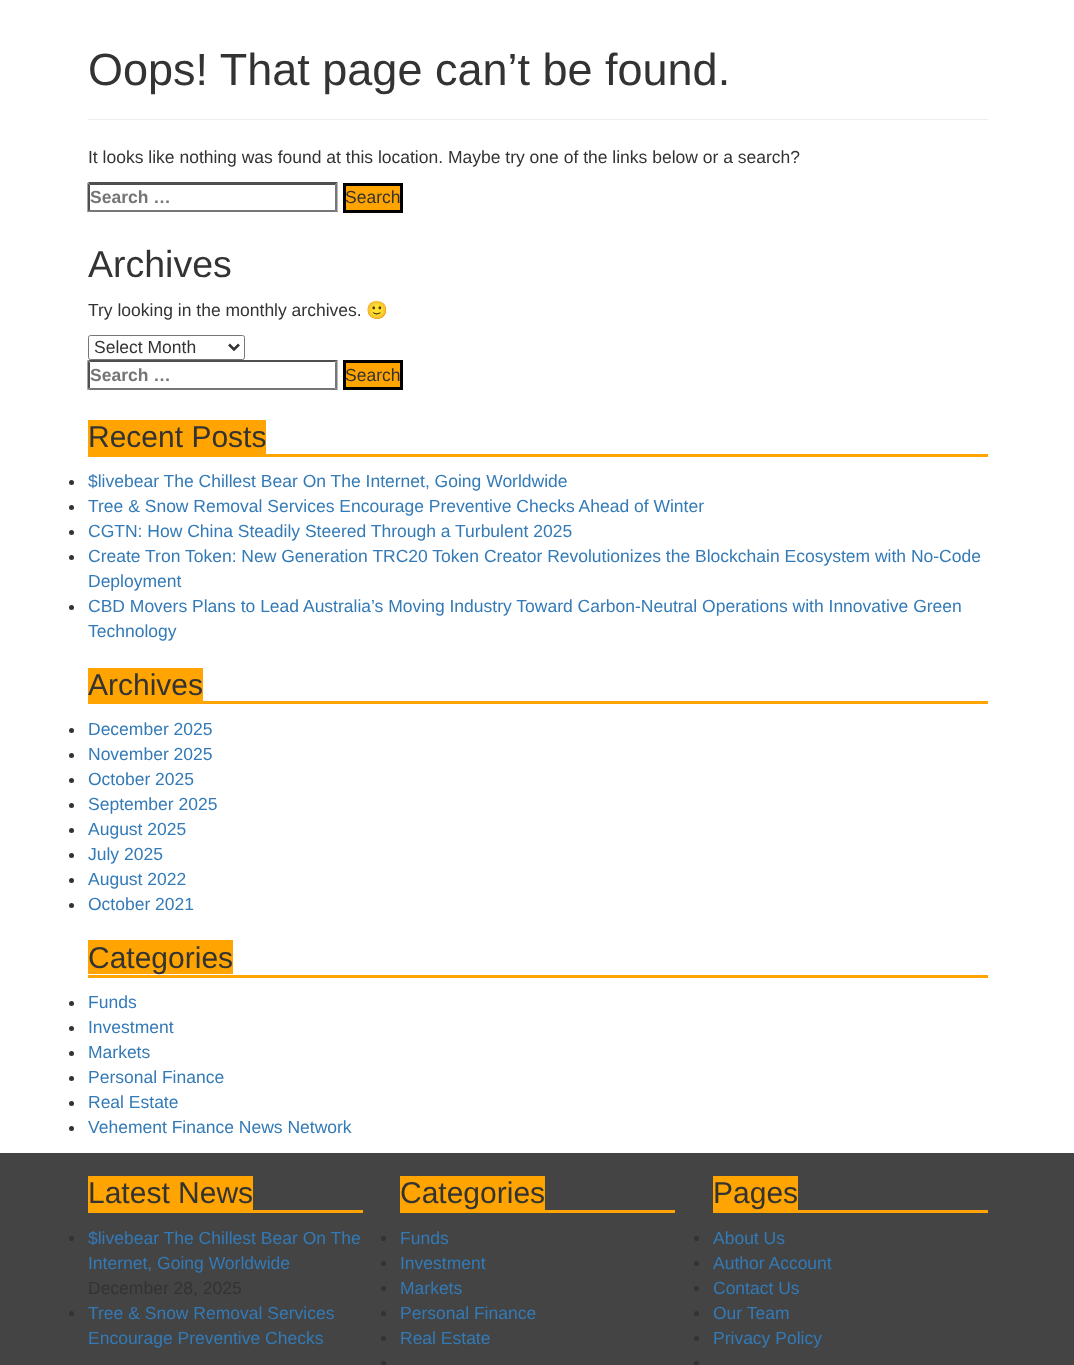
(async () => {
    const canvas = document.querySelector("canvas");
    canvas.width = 1074;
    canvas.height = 1365;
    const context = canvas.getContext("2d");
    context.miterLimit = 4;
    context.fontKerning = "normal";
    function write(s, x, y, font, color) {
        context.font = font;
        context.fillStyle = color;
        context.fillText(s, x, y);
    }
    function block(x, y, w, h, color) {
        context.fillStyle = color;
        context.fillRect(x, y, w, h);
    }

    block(0, 0, 1074, 1365, "rgb(255, 255, 255)");
    block(88, 119, 900, 1, "rgb(238, 238, 238)");
    write("Oops! That page can’t be found.", 88, 85, "45px Liberation Sans", "rgb(51, 51, 51)");
    write("It looks like nothing was found at this location. Maybe try one of the links below or a search?", 88, 163, "17.5px Liberation Sans", "rgb(51, 51, 51)");
    context.fillStyle = "rgb(79, 79, 79)";
    context.beginPath();
    context.moveTo(88, 182);
    context.lineTo(338, 182);
    context.lineTo(335, 185);
    context.lineTo(90, 185);
    context.closePath();
    context.fill();
    context.fillStyle = "rgb(118, 118, 118)";
    context.beginPath();
    context.moveTo(337.5, 182.5);
    context.lineTo(337.5, 212.5);
    context.lineTo(335, 210);
    context.lineTo(335, 185);
    context.closePath();
    context.fill();
    context.beginPath();
    context.moveTo(338, 212);
    context.lineTo(88, 212);
    context.lineTo(90, 210);
    context.lineTo(335, 210);
    context.closePath();
    context.fill();
    context.fillStyle = "rgb(79, 79, 79)";
    context.beginPath();
    context.moveTo(87.5, 212.5);
    context.lineTo(87.5, 182.5);
    context.lineTo(90, 185);
    context.lineTo(90, 210);
    context.closePath();
    context.fill();
    write("Search …", 90, 203, "bold 17.5px Liberation Sans", "rgb(117, 117, 117)");
    context.fillStyle = "rgb(255, 164, 0)";
    context.beginPath();
    context.rect(344.5, 184.5, 57, 27);
    context.fill();
    context.strokeStyle = "rgb(0, 0, 0)";
    context.lineWidth = 3;
    context.stroke();
    write("Search", 345, 203, "17.5px Liberation Sans", "rgb(51, 51, 51)");
    write("Archives", 88, 277, "37.5px Liberation Sans", "rgb(51, 51, 51)");
    write("Try looking in the monthly archives.", 88, 316, "17.5px Liberation Sans", "rgb(51, 51, 51)");
    write("🙂", 366, 316, "17.5px Noto Color Emoji", "rgb(51, 51, 51)");
    context.beginPath();
    context.roundRect(88.5, 335.5, 156, 24, 2);
    context.strokeStyle = "rgb(118, 118, 118)";
    context.lineWidth = 1;
    context.stroke();
    context.beginPath();
    context.moveTo(229, 344.5);
    context.lineTo(234, 349.5);
    context.lineTo(239, 344.5);
    context.strokeStyle = "rgb(51, 51, 51)";
    context.lineWidth = 2.5;
    context.stroke();
    write("Select Month", 94, 353, "17.5px Liberation Sans", "rgb(51, 51, 51)");
    context.fillStyle = "rgb(79, 79, 79)";
    context.beginPath();
    context.moveTo(88, 360);
    context.lineTo(338, 360);
    context.lineTo(335, 362);
    context.lineTo(90, 362);
    context.closePath();
    context.fill();
    context.fillStyle = "rgb(118, 118, 118)";
    context.beginPath();
    context.moveTo(337.5, 360);
    context.lineTo(337.5, 390);
    context.lineTo(335, 387.5);
    context.lineTo(335, 362.5);
    context.closePath();
    context.fill();
    context.beginPath();
    context.moveTo(338, 390);
    context.lineTo(88, 390);
    context.lineTo(90, 388);
    context.lineTo(335, 388);
    context.closePath();
    context.fill();
    context.fillStyle = "rgb(79, 79, 79)";
    context.beginPath();
    context.moveTo(87.5, 390);
    context.lineTo(87.5, 360);
    context.lineTo(90, 362.5);
    context.lineTo(90, 387.5);
    context.closePath();
    context.fill();
    write("Search …", 90, 381, "bold 17.5px Liberation Sans", "rgb(117, 117, 117)");
    context.fillStyle = "rgb(255, 164, 0)";
    context.beginPath();
    context.rect(344.5, 361.5, 57, 27);
    context.fill();
    context.strokeStyle = "rgb(0, 0, 0)";
    context.lineWidth = 3;
    context.stroke();
    write("Search", 345, 381, "17.5px Liberation Sans", "rgb(51, 51, 51)");
    block(88, 454, 900, 3, "rgb(255, 164, 0)");
    block(88, 420, 178, 34, "rgb(255, 164, 0)");
    write("Recent Posts", 88, 447, "30px Liberation Sans", "rgb(51, 51, 51)");
    context.beginPath();
    context.arc(71.5, 482.5, 2.5, 0, Math.PI * 2);
    context.fill();
    write("$livebear The Chillest Bear On The Internet, Going Worldwide", 88, 487, "17.5px Liberation Sans", "rgb(51, 122, 183)");
    context.fillStyle = "rgb(51, 51, 51)";
    context.beginPath();
    context.arc(71.5, 507.5, 2.5, 0, Math.PI * 2);
    context.fill();
    write("Tree & Snow Removal Services Encourage Preventive Checks Ahead of Winter", 88, 512, "17.5px Liberation Sans", "rgb(51, 122, 183)");
    context.fillStyle = "rgb(51, 51, 51)";
    context.beginPath();
    context.arc(71.5, 532.5, 2.5, 0, Math.PI * 2);
    context.fill();
    write("CGTN: How China Steadily Steered Through a Turbulent 2025", 88, 537, "17.5px Liberation Sans", "rgb(51, 122, 183)");
    context.fillStyle = "rgb(51, 51, 51)";
    context.beginPath();
    context.arc(71.5, 557.5, 2.5, 0, Math.PI * 2);
    context.fill();
    write("Create Tron Token: New Generation TRC20 Token Creator Revolutionizes the Blockchain Ecosystem with No-Code", 88, 562, "17.5px Liberation Sans", "rgb(51, 122, 183)");
    write("Deployment", 88, 587, "17.5px Liberation Sans", "rgb(51, 122, 183)");
    context.fillStyle = "rgb(51, 51, 51)";
    context.beginPath();
    context.arc(71.5, 607.5, 2.5, 0, Math.PI * 2);
    context.fill();
    write("CBD Movers Plans to Lead Australia’s Moving Industry Toward Carbon-Neutral Operations with Innovative Green", 88, 612, "17.5px Liberation Sans", "rgb(51, 122, 183)");
    write("Technology", 88, 637, "17.5px Liberation Sans", "rgb(51, 122, 183)");
    block(88, 701, 900, 3, "rgb(255, 164, 0)");
    block(88, 668, 115, 33, "rgb(255, 164, 0)");
    write("Archives", 88, 695, "30px Liberation Sans", "rgb(51, 51, 51)");
    context.beginPath();
    context.arc(71.5, 730.5, 2.5, 0, Math.PI * 2);
    context.fill();
    write("December 2025", 88, 735, "17.5px Liberation Sans", "rgb(51, 122, 183)");
    context.fillStyle = "rgb(51, 51, 51)";
    context.beginPath();
    context.arc(71.5, 755.5, 2.5, 0, Math.PI * 2);
    context.fill();
    write("November 2025", 88, 760, "17.5px Liberation Sans", "rgb(51, 122, 183)");
    context.fillStyle = "rgb(51, 51, 51)";
    context.beginPath();
    context.arc(71.5, 780.5, 2.5, 0, Math.PI * 2);
    context.fill();
    write("October 2025", 88, 785, "17.5px Liberation Sans", "rgb(51, 122, 183)");
    context.fillStyle = "rgb(51, 51, 51)";
    context.beginPath();
    context.arc(71.5, 805.5, 2.5, 0, Math.PI * 2);
    context.fill();
    write("September 2025", 88, 810, "17.5px Liberation Sans", "rgb(51, 122, 183)");
    context.fillStyle = "rgb(51, 51, 51)";
    context.beginPath();
    context.arc(71.5, 830.5, 2.5, 0, Math.PI * 2);
    context.fill();
    write("August 2025", 88, 835, "17.5px Liberation Sans", "rgb(51, 122, 183)");
    context.fillStyle = "rgb(51, 51, 51)";
    context.beginPath();
    context.arc(71.5, 855.5, 2.5, 0, Math.PI * 2);
    context.fill();
    write("July 2025", 88, 860, "17.5px Liberation Sans", "rgb(51, 122, 183)");
    context.fillStyle = "rgb(51, 51, 51)";
    context.beginPath();
    context.arc(71.5, 880.5, 2.5, 0, Math.PI * 2);
    context.fill();
    write("August 2022", 88, 885, "17.5px Liberation Sans", "rgb(51, 122, 183)");
    context.fillStyle = "rgb(51, 51, 51)";
    context.beginPath();
    context.arc(71.5, 905.5, 2.5, 0, Math.PI * 2);
    context.fill();
    write("October 2021", 88, 910, "17.5px Liberation Sans", "rgb(51, 122, 183)");
    block(88, 975, 900, 3, "rgb(255, 164, 0)");
    block(88, 940, 145, 34, "rgb(255, 164, 0)");
    write("Categories", 88, 968, "30px Liberation Sans", "rgb(51, 51, 51)");
    context.beginPath();
    context.arc(71.5, 1003.5, 2.5, 0, Math.PI * 2);
    context.fill();
    write("Funds", 88, 1008, "17.5px Liberation Sans", "rgb(51, 122, 183)");
    context.fillStyle = "rgb(51, 51, 51)";
    context.beginPath();
    context.arc(71.5, 1028.5, 2.5, 0, Math.PI * 2);
    context.fill();
    write("Investment", 88, 1033, "17.5px Liberation Sans", "rgb(51, 122, 183)");
    context.fillStyle = "rgb(51, 51, 51)";
    context.beginPath();
    context.arc(71.5, 1053.5, 2.5, 0, Math.PI * 2);
    context.fill();
    write("Markets", 88, 1058, "17.5px Liberation Sans", "rgb(51, 122, 183)");
    context.fillStyle = "rgb(51, 51, 51)";
    context.beginPath();
    context.arc(71.5, 1078.5, 2.5, 0, Math.PI * 2);
    context.fill();
    write("Personal Finance", 88, 1083, "17.5px Liberation Sans", "rgb(51, 122, 183)");
    context.fillStyle = "rgb(51, 51, 51)";
    context.beginPath();
    context.arc(71.5, 1103.5, 2.5, 0, Math.PI * 2);
    context.fill();
    write("Real Estate", 88, 1108, "17.5px Liberation Sans", "rgb(51, 122, 183)");
    context.fillStyle = "rgb(51, 51, 51)";
    context.beginPath();
    context.arc(71.5, 1128.5, 2.5, 0, Math.PI * 2);
    context.fill();
    write("Vehement Finance News Network", 88, 1133, "17.5px Liberation Sans", "rgb(51, 122, 183)");
    block(0, 1153, 1074, 212, "rgb(68, 68, 68)");
    block(88, 1210, 275, 3, "rgb(255, 164, 0)");
    block(88, 1176, 165, 34, "rgb(255, 164, 0)");
    write("Latest News", 88, 1203, "30px Liberation Sans", "rgb(51, 51, 51)");
    context.beginPath();
    context.arc(71.5, 1238.5, 2.5, 0, Math.PI * 2);
    context.fill();
    write("$livebear The Chillest Bear On The", 88, 1244, "17.5px Liberation Sans", "rgb(51, 122, 183)");
    write("Internet, Going Worldwide", 88, 1269, "17.5px Liberation Sans", "rgb(51, 122, 183)");
    write("December 28, 2025", 88, 1294, "17.5px Liberation Sans", "rgb(51, 51, 51)");
    context.beginPath();
    context.arc(71.5, 1313.5, 2.5, 0, Math.PI * 2);
    context.fill();
    write("Tree & Snow Removal Services", 88, 1319, "17.5px Liberation Sans", "rgb(51, 122, 183)");
    write("Encourage Preventive Checks", 88, 1344, "17.5px Liberation Sans", "rgb(51, 122, 183)");
    block(400, 1210, 275, 3, "rgb(255, 164, 0)");
    block(400, 1176, 145, 34, "rgb(255, 164, 0)");
    write("Categories", 400, 1203, "30px Liberation Sans", "rgb(51, 51, 51)");
    context.beginPath();
    context.arc(383.5, 1238.5, 2.5, 0, Math.PI * 2);
    context.fill();
    write("Funds", 400, 1244, "17.5px Liberation Sans", "rgb(51, 122, 183)");
    context.fillStyle = "rgb(51, 51, 51)";
    context.beginPath();
    context.arc(383.5, 1263.5, 2.5, 0, Math.PI * 2);
    context.fill();
    write("Investment", 400, 1269, "17.5px Liberation Sans", "rgb(51, 122, 183)");
    context.fillStyle = "rgb(51, 51, 51)";
    context.beginPath();
    context.arc(383.5, 1288.5, 2.5, 0, Math.PI * 2);
    context.fill();
    write("Markets", 400, 1294, "17.5px Liberation Sans", "rgb(51, 122, 183)");
    context.fillStyle = "rgb(51, 51, 51)";
    context.beginPath();
    context.arc(383.5, 1313.5, 2.5, 0, Math.PI * 2);
    context.fill();
    write("Personal Finance", 400, 1319, "17.5px Liberation Sans", "rgb(51, 122, 183)");
    context.fillStyle = "rgb(51, 51, 51)";
    context.beginPath();
    context.arc(383.5, 1338.5, 2.5, 0, Math.PI * 2);
    context.fill();
    write("Real Estate", 400, 1344, "17.5px Liberation Sans", "rgb(51, 122, 183)");
    context.fillStyle = "rgb(51, 51, 51)";
    context.beginPath();
    context.arc(383.5, 1363.5, 2.5, 0, Math.PI * 2);
    context.fill();
    block(713, 1210, 275, 3, "rgb(255, 164, 0)");
    block(713, 1176, 85, 34, "rgb(255, 164, 0)");
    write("Pages", 713, 1203, "30px Liberation Sans", "rgb(51, 51, 51)");
    context.beginPath();
    context.arc(696.5, 1238.5, 2.5, 0, Math.PI * 2);
    context.fill();
    write("About Us", 713, 1244, "17.5px Liberation Sans", "rgb(51, 122, 183)");
    context.fillStyle = "rgb(51, 51, 51)";
    context.beginPath();
    context.arc(696.5, 1263.5, 2.5, 0, Math.PI * 2);
    context.fill();
    write("Author Account", 713, 1269, "17.5px Liberation Sans", "rgb(51, 122, 183)");
    context.fillStyle = "rgb(51, 51, 51)";
    context.beginPath();
    context.arc(696.5, 1288.5, 2.5, 0, Math.PI * 2);
    context.fill();
    write("Contact Us", 713, 1294, "17.5px Liberation Sans", "rgb(51, 122, 183)");
    context.fillStyle = "rgb(51, 51, 51)";
    context.beginPath();
    context.arc(696.5, 1313.5, 2.5, 0, Math.PI * 2);
    context.fill();
    write("Our Team", 713, 1319, "17.5px Liberation Sans", "rgb(51, 122, 183)");
    context.fillStyle = "rgb(51, 51, 51)";
    context.beginPath();
    context.arc(696.5, 1338.5, 2.5, 0, Math.PI * 2);
    context.fill();
    write("Privacy Policy", 713, 1344, "17.5px Liberation Sans", "rgb(51, 122, 183)");
    context.fillStyle = "rgb(51, 51, 51)";
    context.beginPath();
    context.arc(696.5, 1363.5, 2.5, 0, Math.PI * 2);
    context.fill();
})();
